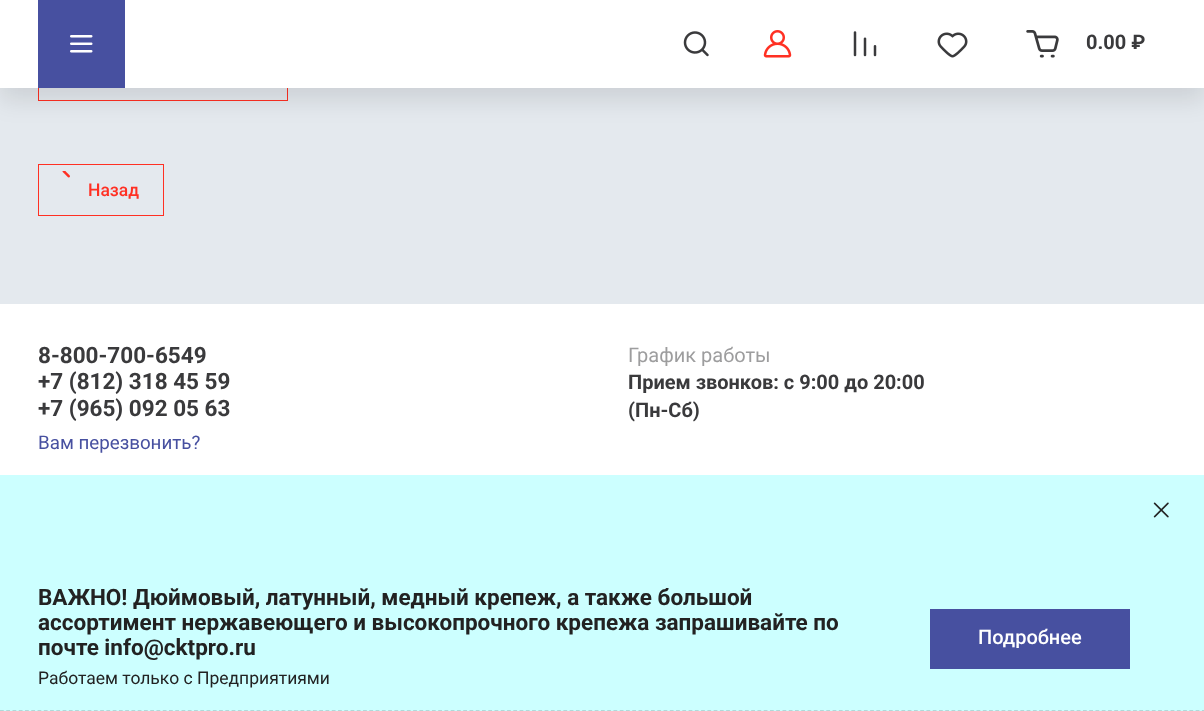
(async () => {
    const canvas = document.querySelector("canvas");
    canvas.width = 1204;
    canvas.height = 711;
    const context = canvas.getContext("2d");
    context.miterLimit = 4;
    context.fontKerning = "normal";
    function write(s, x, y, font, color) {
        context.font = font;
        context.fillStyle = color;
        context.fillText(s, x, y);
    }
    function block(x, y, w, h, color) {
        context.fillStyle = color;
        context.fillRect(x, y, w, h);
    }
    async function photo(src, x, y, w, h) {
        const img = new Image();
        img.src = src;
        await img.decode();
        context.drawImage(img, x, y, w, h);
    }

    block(0, 0, 1204, 711, "rgb(228, 233, 238)");
    context.strokeStyle = "rgb(255, 48, 35)";
    context.strokeRect(38.5, 49.5, 249, 51);
    context.fillStyle = "rgba(0, 0, 0, 0.1)";
    context.filter = "blur(12.5px)";
    context.beginPath();
    context.rect(0, 13, 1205, 87);
    context.fill();
    context.filter = "none";
    block(0, 0, 1204, 88, "rgb(255, 255, 255)");
    block(38, 0, 87, 88, "rgb(71, 80, 160)");
    await photo("media/1.png", 70, 35, 23, 18);
    await photo("media/2.png", 683, 31, 26, 26);
    await photo("media/3.png", 763, 30, 29, 28);
    await photo("media/4.png", 853, 31, 24, 26);
    await photo("media/5.png", 937, 32, 31, 26);
    await photo("media/6.png", 1026, 30, 33, 28);
    write("0.00 ₽", 1086, 49, "bold 20px Roboto", "rgb(58, 58, 60)");
    context.strokeRect(38.5, 164.5, 125, 51);
    await photo("media/7.png", 62, 171, 8, 7);
    write("Назад", 88, 196, "500 17.5px Roboto", "rgb(255, 48, 35)");
    block(0, 304, 1204, 171, "rgb(255, 255, 255)");
    write("8-800-700-6549", 38, 363, "bold 22.5px Roboto", "rgb(58, 58, 60)");
    write("+7 (812) 318 45 59", 38, 389, "bold 22.5px Roboto", "rgb(58, 58, 60)");
    write("+7 (965) 092 05 63", 38, 416, "bold 22.5px Roboto", "rgb(58, 58, 60)");
    write("Вам перезвонить?", 38, 449, "18.75px Roboto", "rgb(71, 80, 160)");
    write("График работы", 628, 362, "20px Roboto", "rgb(157, 157, 158)");
    write("Прием звонков: с 9:00 до 20:00", 628, 389, "bold 20px Roboto", "rgb(58, 58, 60)");
    write("(Пн-Сб)", 628, 417, "bold 20px Roboto", "rgb(58, 58, 60)");
    block(0, 475, 1204, 236, "rgb(204, 255, 255)");
    context.beginPath();
    context.moveTo(0, 710.5);
    context.lineTo(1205, 710.5);
    context.strokeStyle = "rgb(175, 216, 216)";
    context.lineWidth = 1.2;
    context.setLineDash([3.75, 2.51]);
    context.stroke();
    await photo("media/8.png", 1153, 502, 16, 16);
    write("ВАЖНО! Дюймовый, латунный, медный крепеж, а также большой", 38, 605, "bold 22.5px Roboto", "rgb(34, 34, 34)");
    write("ассортимент нержавеющего и высокопрочного крепежа запрашивайте по", 38, 630, "bold 22.5px Roboto", "rgb(34, 34, 34)");
    write("почте info@cktpro.ru", 38, 655, "bold 22.5px Roboto", "rgb(34, 34, 34)");
    write("Работаем только с Предприятиями", 38, 684, "17.5px Roboto", "rgb(34, 34, 34)");
    block(930, 609, 200, 60, "rgb(71, 80, 160)");
    write("Подробнее", 978, 644, "500 20px Roboto", "rgb(255, 255, 255)");
})();
